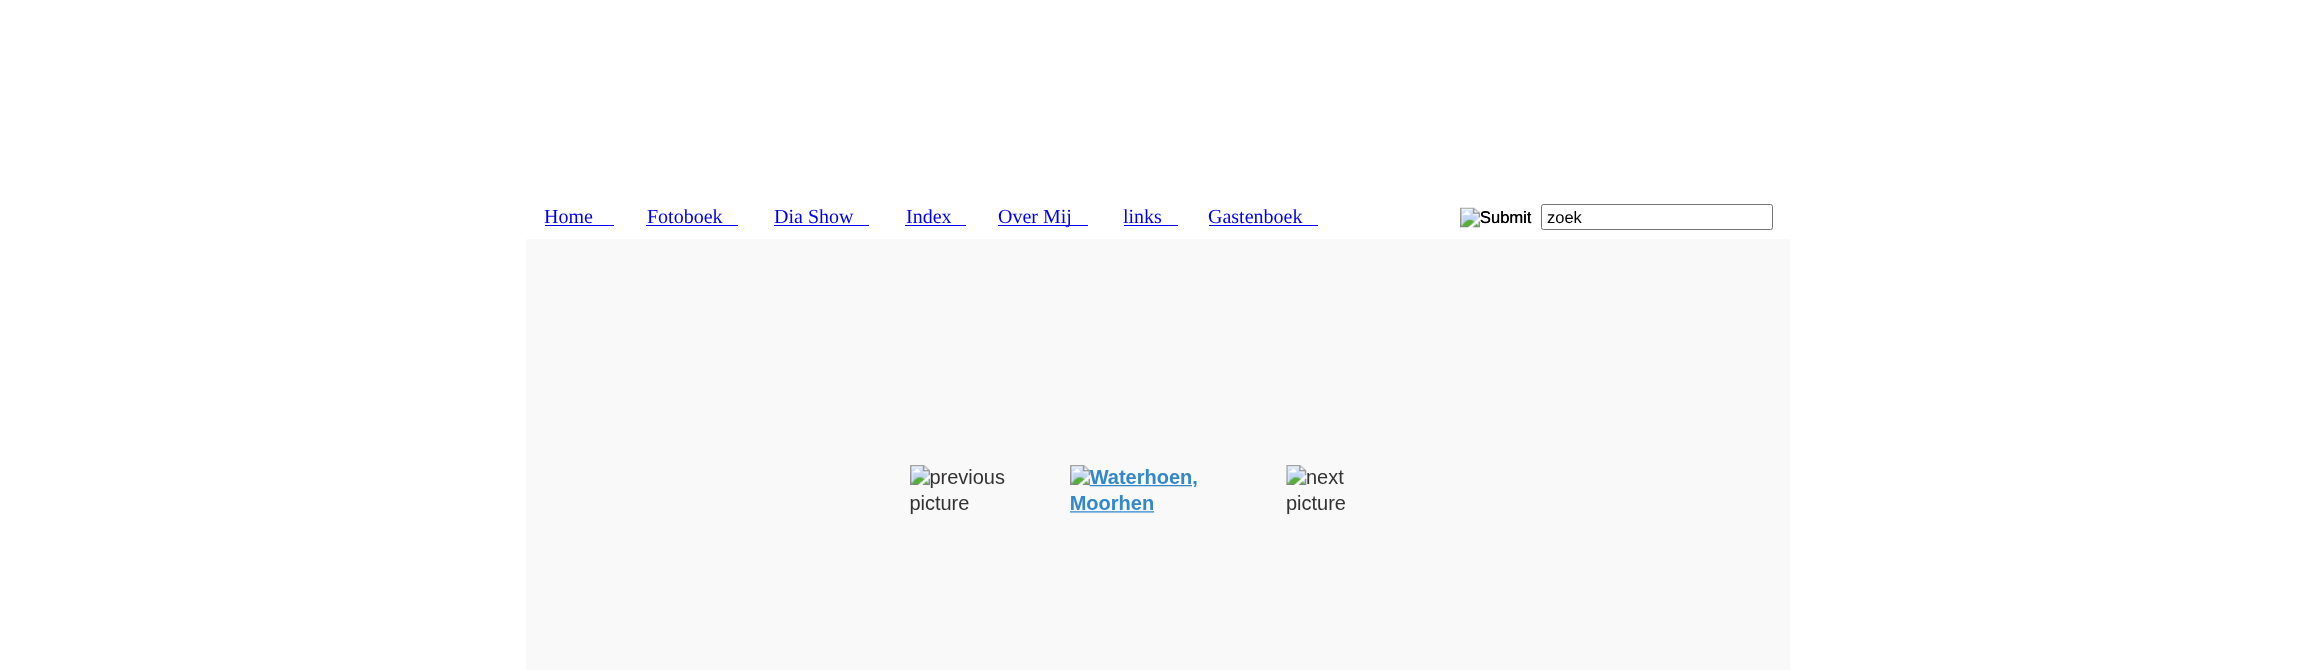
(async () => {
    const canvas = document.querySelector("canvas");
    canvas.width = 2313;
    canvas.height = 670;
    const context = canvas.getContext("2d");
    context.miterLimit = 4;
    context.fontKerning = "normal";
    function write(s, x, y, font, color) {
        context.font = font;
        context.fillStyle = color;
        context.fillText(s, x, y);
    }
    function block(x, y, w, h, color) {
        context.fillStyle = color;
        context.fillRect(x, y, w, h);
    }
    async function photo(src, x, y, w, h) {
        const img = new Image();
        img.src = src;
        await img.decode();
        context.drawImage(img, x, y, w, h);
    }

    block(0, 0, 2313, 670, "rgb(255, 255, 255)");
    write("Home", 544, 223, "20px Liberation Serif", "rgb(0, 0, 238)");
    block(545, 225, 69, 1, "rgb(0, 0, 238)");
    write("Fotoboek", 647, 223, "20px Liberation Serif", "rgb(0, 0, 238)");
    block(646, 225, 92, 1, "rgb(0, 0, 238)");
    write("Dia Show", 774, 223, "20px Liberation Serif", "rgb(0, 0, 238)");
    block(774, 225, 95, 1, "rgb(0, 0, 238)");
    write("Index", 906, 223, "20px Liberation Serif", "rgb(0, 0, 238)");
    block(905, 225, 61, 1, "rgb(0, 0, 238)");
    block(998, 225, 90, 1, "rgb(0, 0, 238)");
    write("Over Mij", 998, 223, "20px Liberation Serif", "rgb(0, 0, 238)");
    write("links", 1123, 223, "20px Liberation Serif", "rgb(0, 0, 238)");
    block(1124, 225, 54, 1, "rgb(0, 0, 238)");
    write("Gastenboek", 1208, 223, "20px Liberation Serif", "rgb(0, 0, 238)");
    block(1209, 225, 109, 1, "rgb(0, 0, 238)");
    await photo("media/1.png", 1460, 207, 72, 21);
    write("Submit", 1480, 223, "16.5px Liberation Sans", "rgb(0, 0, 0)");
    context.beginPath();
    context.roundRect(1541.5, 204.5, 231, 25, 2);
    context.strokeStyle = "rgb(118, 118, 118)";
    context.stroke();
    write("zoek", 1547, 223, "16.5px Liberation Sans", "rgb(0, 0, 0)");
    await photo("media/2.png", 526, 239, 1264, 431);
})();
